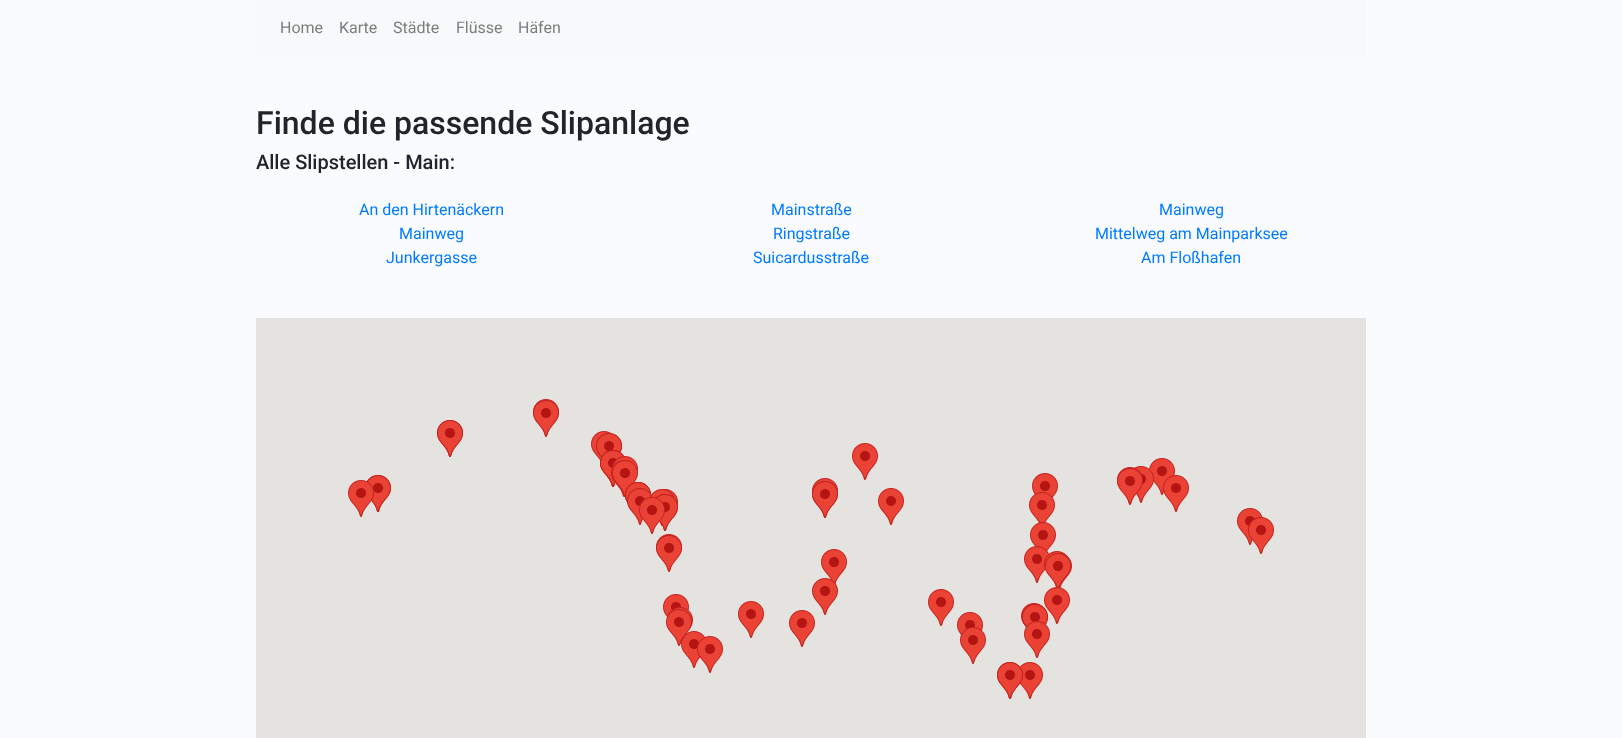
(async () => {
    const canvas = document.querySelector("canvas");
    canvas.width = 1622;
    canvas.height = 738;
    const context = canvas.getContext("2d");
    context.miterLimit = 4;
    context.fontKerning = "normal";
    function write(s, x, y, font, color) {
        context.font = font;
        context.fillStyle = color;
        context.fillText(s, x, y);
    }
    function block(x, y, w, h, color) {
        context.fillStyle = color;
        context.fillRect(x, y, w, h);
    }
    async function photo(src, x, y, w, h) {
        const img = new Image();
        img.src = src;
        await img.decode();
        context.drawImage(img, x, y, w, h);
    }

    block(0, 0, 1622, 738, "rgb(249, 251, 255)");
    block(256, 0, 1110, 56, "rgb(248, 249, 250)");
    write("Home", 280, 33, "16px Roboto", "rgb(124, 125, 125)");
    write("Karte", 339, 33, "16px Roboto", "rgb(124, 125, 125)");
    write("Städte", 393, 33, "16px Roboto", "rgb(124, 125, 125)");
    write("Flüsse", 456, 33, "16px Roboto", "rgb(124, 125, 125)");
    write("Häfen", 518, 33, "16px Roboto", "rgb(124, 125, 125)");
    write("Finde die passende Slipanlage", 256, 134, "500 32px Roboto", "rgb(33, 37, 41)");
    write("Alle Slipstellen - Main:", 256, 169, "500 20px Roboto", "rgb(33, 37, 41)");
    write("An den Hirtenäckern", 359, 215, "16px Roboto", "rgb(0, 123, 255)");
    write("Mainweg", 399, 239, "16px Roboto", "rgb(0, 123, 255)");
    write("Junkergasse", 386, 263, "16px Roboto", "rgb(0, 123, 255)");
    write("Mainstraße", 771, 215, "16px Roboto", "rgb(0, 123, 255)");
    write("Ringstraße", 773, 239, "16px Roboto", "rgb(0, 123, 255)");
    write("Suicardusstraße", 753, 263, "16px Roboto", "rgb(0, 123, 255)");
    write("Mainweg", 1159, 215, "16px Roboto", "rgb(0, 123, 255)");
    write("Mittelweg am Mainparksee", 1095, 239, "16px Roboto", "rgb(0, 123, 255)");
    write("Am Floßhafen", 1141, 263, "16px Roboto", "rgb(0, 123, 255)");
    block(256, 318, 1110, 420, "rgb(229, 227, 223)");
    await photo("media/1.png", 533, 399, 26, 36);
    await photo("media/2.png", 437, 420, 26, 37);
    await photo("media/3.png", 533, 400, 26, 37);
    await photo("media/4.png", 437, 420, 26, 37);
    await photo("media/5.png", 591, 431, 21, 31);
    await photo("media/6.png", 596, 433, 26, 25);
    await photo("media/7.png", 596, 433, 26, 25);
    await photo("media/2.png", 852, 443, 26, 37);
    await photo("media/8.png", 600, 450, 25, 37);
    await photo("media/9.png", 600, 450, 25, 37);
    await photo("media/10.png", 600, 450, 25, 37);
    await photo("media/11.png", 612, 456, 26, 18);
    await photo("media/2.png", 1149, 458, 26, 37);
    await photo("media/12.png", 611, 460, 24, 37);
    await photo("media/13.png", 612, 460, 26, 37);
    await photo("media/15.png", 1134, 466, 20, 37);
    await photo("media/14.png", 1117, 467, 26, 36);
    await photo("media/16.png", 366, 475, 25, 37);
    await photo("media/17.png", 1032, 473, 26, 25);
    await photo("media/18.png", 1117, 468, 26, 37);
    await photo("media/20.png", 366, 475, 25, 37);
    await photo("media/19.png", 348, 480, 26, 37);
    await photo("media/21.png", 812, 478, 26, 18);
    await photo("media/22.png", 1163, 475, 26, 37);
    await photo("media/23.png", 812, 481, 26, 37);
    await photo("media/24.png", 625, 482, 26, 36);
    await photo("media/25.png", 812, 481, 26, 37);
    await photo("media/26.png", 625, 482, 26, 36);
    await photo("media/27.png", 625, 482, 26, 36);
    await photo("media/28.png", 627, 488, 25, 37);
    await photo("media/30.png", 660, 489, 18, 18);
    await photo("media/29.png", 649, 489, 26, 37);
    await photo("media/2.png", 878, 488, 26, 37);
    await photo("media/31.png", 1029, 492, 26, 31);
    await photo("media/32.png", 655, 494, 23, 37);
    await photo("media/34.png", 655, 494, 23, 37);
    await photo("media/33.png", 639, 497, 26, 37);
    await photo("media/2.png", 1237, 508, 26, 37);
    await photo("media/1.png", 656, 534, 26, 36);
    await photo("media/35.png", 1030, 522, 26, 29);
    await photo("media/36.png", 1248, 517, 26, 37);
    await photo("media/3.png", 656, 535, 26, 37);
    await photo("media/37.png", 821, 549, 26, 35);
    await photo("media/38.png", 1024, 546, 25, 37);
    await photo("media/39.png", 1044, 551, 25, 37);
    await photo("media/41.png", 1048, 553, 24, 35);
    await photo("media/40.png", 1045, 553, 26, 35);
    await photo("media/42.png", 663, 594, 26, 23);
    await photo("media/2.png", 738, 601, 26, 37);
    await photo("media/43.png", 812, 578, 26, 37);
    await photo("media/2.png", 928, 589, 26, 37);
    await photo("media/45.png", 1044, 587, 26, 37);
    await photo("media/44.png", 1021, 603, 26, 24);
    await photo("media/46.png", 1022, 604, 26, 23);
    await photo("media/47.png", 667, 607, 26, 37);
    await photo("media/48.png", 1022, 604, 26, 23);
    await photo("media/49.png", 666, 609, 26, 37);
    await photo("media/2.png", 789, 610, 26, 37);
    await photo("media/42.png", 957, 612, 26, 23);
    await photo("media/50.png", 1024, 621, 26, 37);
    await photo("media/51.png", 681, 631, 24, 37);
    await photo("media/52.png", 697, 636, 26, 37);
    await photo("media/53.png", 960, 627, 26, 37);
    await photo("media/56.png", 1019, 662, 24, 37);
    await photo("media/54.png", 997, 662, 26, 37);
    await photo("media/55.png", 997, 662, 26, 37);
})();
